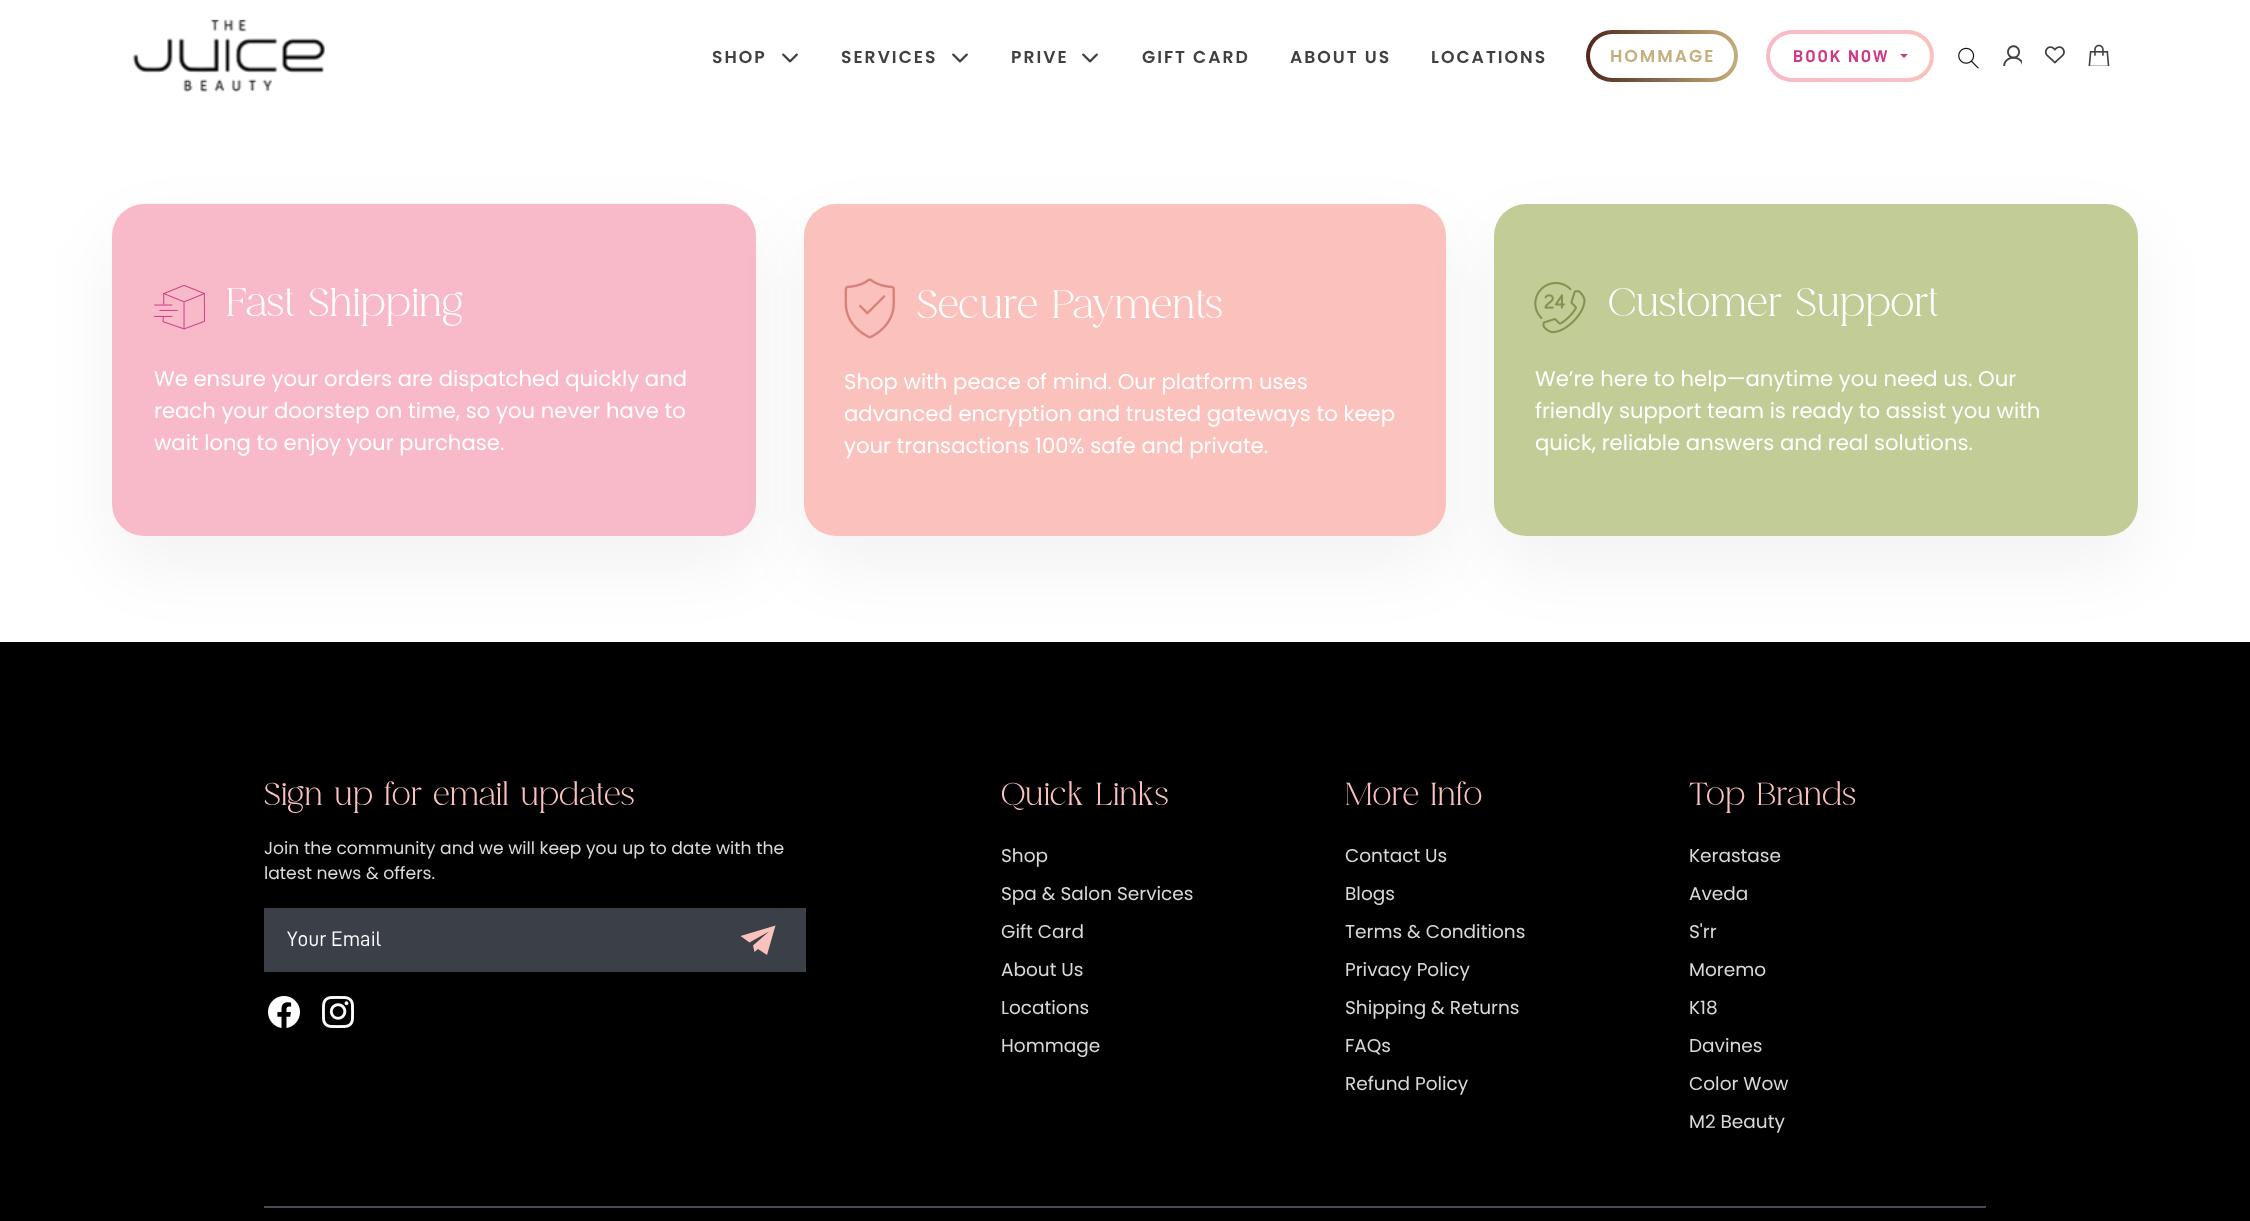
(async () => {
    const canvas = document.querySelector("canvas");
    canvas.width = 2250;
    canvas.height = 1221;
    const context = canvas.getContext("2d");
    context.miterLimit = 4;
    context.fontKerning = "normal";
    function write(s, x, y, font, color) {
        context.font = font;
        context.fillStyle = color;
        context.fillText(s, x, y);
    }
    function block(x, y, w, h, color) {
        context.fillStyle = color;
        context.fillRect(x, y, w, h);
    }
    function card(x, y, w, h, r, color) {
        context.fillStyle = color;
        context.beginPath();
        context.roundRect(x, y, w, h, r);
        context.fill();
    }
    async function photo(src, x, y, w, h) {
        const img = new Image();
        img.src = src;
        await img.decode();
        context.drawImage(img, x, y, w, h);
    }
    let gradient;

    block(0, 0, 2250, 1221, "rgb(255, 255, 255)");
    await photo("media/1.png", 132, 19, 193, 73);
    context.letterSpacing = "2px";
    write("SHOP", 712, 63, "600 17.2px Poppins", "rgb(64, 64, 64)");
    await photo("media/2.png", 782, 53, 16, 10);
    write("SERVICES", 841, 63, "600 17.2px Poppins", "rgb(64, 64, 64)");
    await photo("media/2.png", 952, 53, 16, 10);
    write("PRIVE", 1011, 63, "600 17.2px Poppins", "rgb(64, 64, 64)");
    await photo("media/2.png", 1082, 53, 16, 10);
    write("GIFT CARD", 1142, 63, "600 17.2px Poppins", "rgb(64, 64, 64)");
    write("ABOUT US", 1290, 63, "600 17.2px Poppins", "rgb(64, 64, 64)");
    write("LOCATIONS", 1431, 63, "600 17.2px Poppins", "rgb(64, 64, 64)");
    gradient = context.createLinearGradient(1738, 56, 1586, 56);
    gradient.addColorStop(0, "rgb(197, 175, 125)");
    gradient.addColorStop(1, "rgb(80, 38, 27)");
    context.fillStyle = gradient;
    context.beginPath();
    context.roundRect(1586, 30, 152, 52, 26);
    context.fill();
    card(1590, 34, 144, 44, 22, "rgb(255, 255, 255)");
    write("HOMMAGE", 1610, 62, "600 17.2px Poppins", "rgb(197, 175, 125)");
    gradient = context.createLinearGradient(1934, 56, 1766, 56);
    gradient.addColorStop(0, "rgb(251, 193, 189)");
    gradient.addColorStop(1, "rgb(248, 186, 201)");
    context.fillStyle = gradient;
    context.beginPath();
    context.roundRect(1766, 30, 168, 52, 26);
    context.fill();
    card(1770, 34, 160, 44, 22, "rgb(255, 255, 255)");
    write("BOOK NOW", 1793, 62, "bold 17.2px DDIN", "rgb(205, 59, 135)");
    context.beginPath();
    context.moveTo(1900, 54);
    context.lineTo(1908, 54);
    context.lineTo(1904, 58);
    context.closePath();
    context.fill();
    await photo("media/3.png", 1958, 47, 21, 22);
    await photo("media/4.png", 2003, 45, 19, 21);
    await photo("media/5.png", 2044, 46, 21, 18);
    await photo("media/6.png", 2088, 44, 22, 22);
    block(0, 642, 2250, 579, "rgb(0, 0, 0)");
    context.fillStyle = "rgba(0, 0, 0, 0.05)";
    context.filter = "blur(34px)";
    context.beginPath();
    context.roundRect(112, 234, 644, 332, 32);
    context.fill();
    context.filter = "none";
    card(112, 204, 644, 332, 32, "rgb(248, 186, 201)");
    await photo("media/7.png", 154, 285, 51, 45);
    context.letterSpacing = "0px";
    write("Fast Shipping", 226, 316, "39.75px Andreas", "rgb(255, 255, 255)");
    write("We ensure your orders are dispatched quickly and", 154, 386, "21.2px Poppins", "rgb(255, 255, 255)");
    write("reach your doorstep on time, so you never have to", 154, 418, "21.2px Poppins", "rgb(255, 255, 255)");
    write("wait long to enjoy your purchase.", 154, 450, "21.2px Poppins", "rgb(255, 255, 255)");
    context.fillStyle = "rgba(0, 0, 0, 0.05)";
    context.filter = "blur(34px)";
    context.beginPath();
    context.roundRect(804, 234, 642, 332, 32);
    context.fill();
    context.filter = "none";
    card(804, 204, 642, 332, 32, "rgb(251, 193, 189)");
    await photo("media/8.png", 844, 278, 51, 61);
    write("Secure Payments", 917, 318, "39.75px Andreas", "rgb(255, 255, 255)");
    write("Shop with peace of mind. Our platform uses", 844, 389, "21.2px Poppins", "rgb(255, 255, 255)");
    write("advanced encryption and trusted gateways to keep", 844, 421, "21.2px Poppins", "rgb(255, 255, 255)");
    write("your transactions 100% safe and private.", 844, 453, "21.2px Poppins", "rgb(255, 255, 255)");
    context.fillStyle = "rgba(0, 0, 0, 0.05)";
    context.filter = "blur(34px)";
    context.beginPath();
    context.roundRect(1494, 234, 644, 332, 32);
    context.fill();
    context.filter = "none";
    card(1494, 204, 644, 332, 32, "rgb(194, 204, 151)");
    await photo("media/9.png", 1534, 282, 52, 52);
    write("Customer Support", 1608, 316, "39.75px Andreas", "rgb(255, 255, 255)");
    write("We’re here to help—anytime you need us. Our", 1535, 386, "21.2px Poppins", "rgb(255, 255, 255)");
    write("friendly support team is ready to assist you with", 1535, 418, "21.2px Poppins", "rgb(255, 255, 255)");
    write("quick, reliable answers and real solutions.", 1535, 450, "21.2px Poppins", "rgb(255, 255, 255)");
    write("Sign up for email updates", 264, 805, "31.75px Andreas", "rgb(251, 193, 189)");
    write("Join the community and we will keep you up to date with the", 264, 854, "17.2px Poppins", "rgb(217, 217, 217)");
    write("latest news & offers.", 264, 879, "17.2px Poppins", "rgb(217, 217, 217)");
    block(264, 908, 542, 64, "rgb(59, 63, 71)");
    write("Your Email", 287, 946, "21.2px DDIN", "rgb(255, 255, 255)");
    context.fillStyle = "rgb(251, 193, 189)";
    context.beginPath();
    context.moveTo(767, 955);
    context.lineTo(758, 949);
    context.lineTo(754.5, 952);
    context.lineTo(753, 945.5);
    context.lineTo(769, 931.5);
    context.lineTo(749.5, 942.5);
    context.lineTo(740.5, 936);
    context.lineTo(775.5, 925.5);
    context.closePath();
    context.fill("evenodd");
    await photo("media/10.png", 268, 996, 32, 32);
    await photo("media/11.png", 322, 996, 32, 32);
    write("Quick Links", 1001, 805, "31.75px Andreas", "rgb(251, 193, 189)");
    write("Shop", 1001, 862, "18.5px Poppins", "rgb(217, 217, 217)");
    write("Spa & Salon Services", 1001, 900, "18.5px Poppins", "rgb(217, 217, 217)");
    write("Gift Card", 1001, 938, "18.5px Poppins", "rgb(217, 217, 217)");
    write("About Us", 1001, 976, "18.5px Poppins", "rgb(217, 217, 217)");
    write("Locations", 1001, 1014, "18.5px Poppins", "rgb(217, 217, 217)");
    write("Hommage", 1001, 1052, "18.5px Poppins", "rgb(217, 217, 217)");
    write("More Info", 1345, 805, "31.75px Andreas", "rgb(251, 193, 189)");
    write("Contact Us", 1345, 862, "18.5px Poppins", "rgb(217, 217, 217)");
    write("Blogs", 1345, 900, "18.5px Poppins", "rgb(217, 217, 217)");
    write("Terms & Conditions", 1345, 938, "18.5px Poppins", "rgb(217, 217, 217)");
    write("Privacy Policy", 1345, 976, "18.5px Poppins", "rgb(217, 217, 217)");
    write("Shipping & Returns", 1345, 1014, "18.5px Poppins", "rgb(217, 217, 217)");
    write("FAQs", 1345, 1052, "18.5px Poppins", "rgb(217, 217, 217)");
    write("Refund Policy", 1345, 1090, "18.5px Poppins", "rgb(217, 217, 217)");
    write("Top Brands", 1689, 805, "31.75px Andreas", "rgb(251, 193, 189)");
    write("Kerastase", 1689, 862, "18.5px Poppins", "rgb(217, 217, 217)");
    write("Aveda", 1689, 900, "18.5px Poppins", "rgb(217, 217, 217)");
    write("S'rr", 1689, 938, "18.5px Poppins", "rgb(217, 217, 217)");
    write("Moremo", 1689, 976, "18.5px Poppins", "rgb(217, 217, 217)");
    write("K18", 1689, 1014, "18.5px Poppins", "rgb(217, 217, 217)");
    write("Davines", 1689, 1052, "18.5px Poppins", "rgb(217, 217, 217)");
    write("Color Wow", 1689, 1090, "18.5px Poppins", "rgb(217, 217, 217)");
    write("M2 Beauty", 1689, 1128, "18.5px Poppins", "rgb(217, 217, 217)");
    block(264, 1206, 1722, 2, "rgb(69, 75, 89)");
})();
